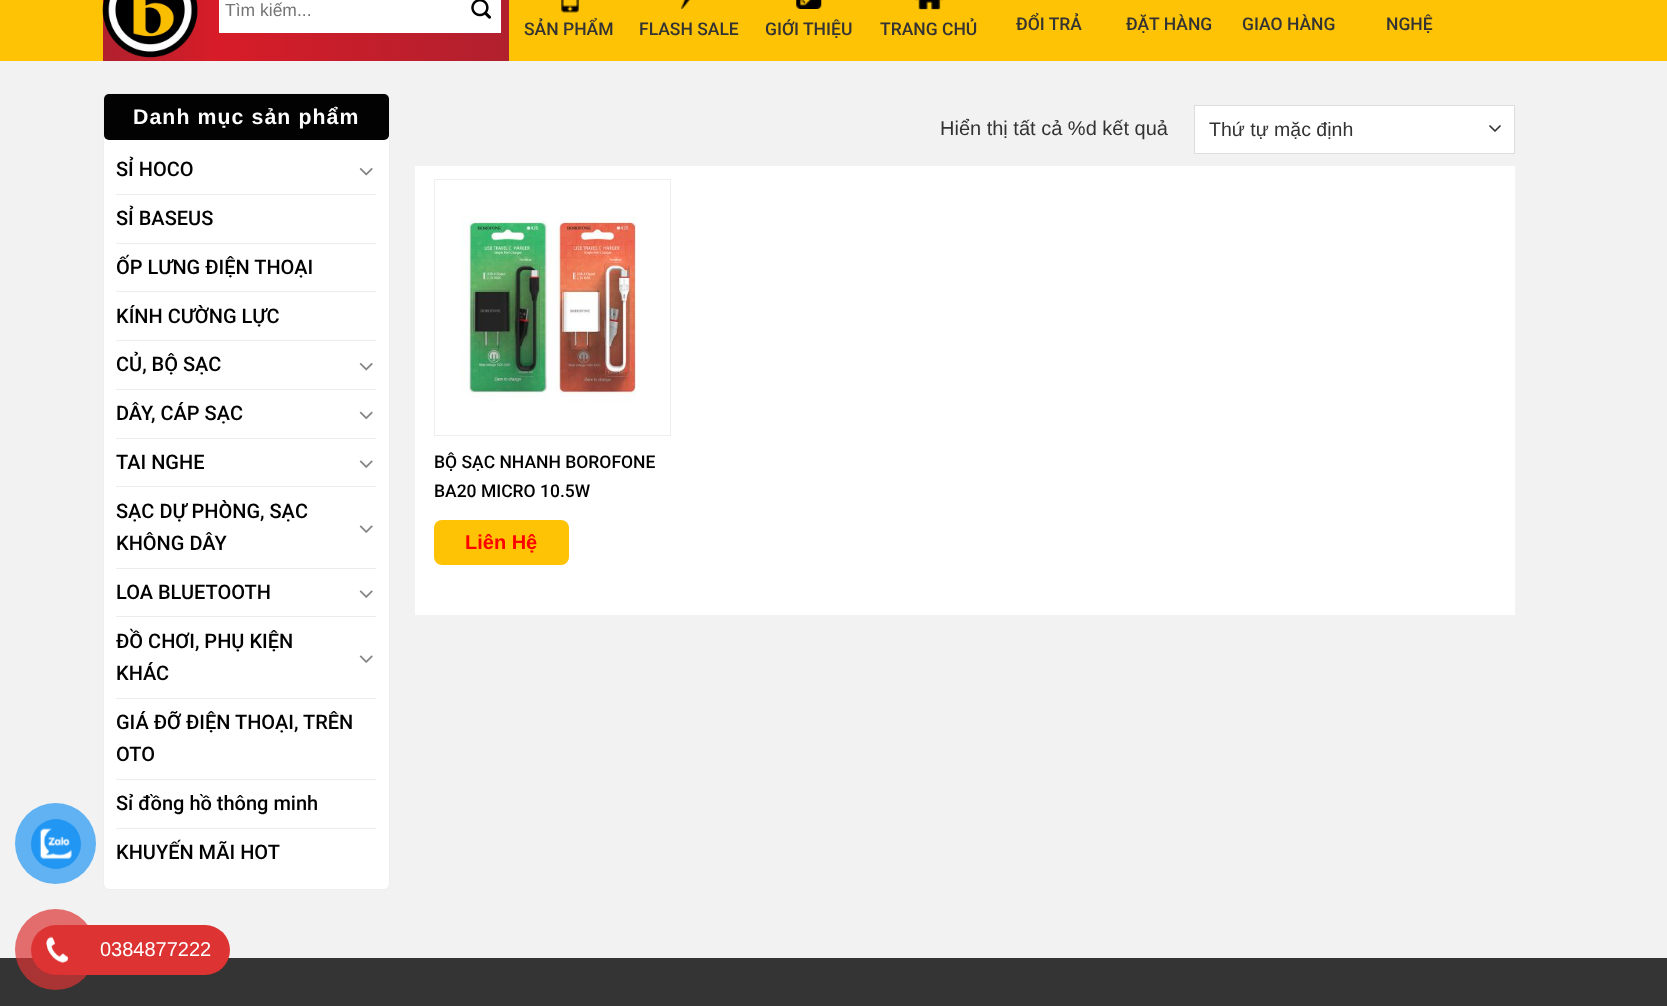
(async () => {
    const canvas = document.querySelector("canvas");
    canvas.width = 1667;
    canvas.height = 1006;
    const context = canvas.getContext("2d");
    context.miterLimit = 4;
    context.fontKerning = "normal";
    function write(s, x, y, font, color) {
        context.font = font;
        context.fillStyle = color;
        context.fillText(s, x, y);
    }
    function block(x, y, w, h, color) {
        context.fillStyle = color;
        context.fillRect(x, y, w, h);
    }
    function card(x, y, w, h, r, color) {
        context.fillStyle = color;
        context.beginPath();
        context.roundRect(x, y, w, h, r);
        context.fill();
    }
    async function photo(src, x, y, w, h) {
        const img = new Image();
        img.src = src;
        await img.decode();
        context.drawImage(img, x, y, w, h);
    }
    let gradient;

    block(0, 0, 1667, 1006, "rgb(242, 242, 242)");
    block(0, 0, 1667, 61, "rgb(254, 195, 5)");
    gradient = context.createLinearGradient(103, 10, 211, 10);
    gradient.addColorStop(0, "rgb(177, 32, 46)");
    gradient.addColorStop(1, "rgb(213, 29, 40)");
    context.fillStyle = gradient;
    context.fillRect(103, 0, 108, 61);
    await photo("media/1.png", 102, 0, 96, 58);
    gradient = context.createLinearGradient(211, 10, 509, 10);
    gradient.addColorStop(0, "rgb(216, 28, 40)");
    gradient.addColorStop(1, "rgb(177, 32, 46)");
    context.fillStyle = gradient;
    context.fillRect(211, 0, 298, 61);
    block(219, 0, 282, 33, "rgb(255, 255, 255)");
    write("Tìm kiếm...", 225, 16, "17.5px Liberation Sans", "rgb(117, 117, 117)");
    await photo("media/2.png", 471, 0, 20, 19);
    await photo("media/3.png", 561, 0, 18, 13);
    write("SẢN PHẨM", 524, 35, "500 17.5px Roboto", "rgb(51, 51, 51)");
    await photo("media/4.png", 681, 0, 10, 9);
    write("FLASH SALE", 639, 35, "500 17.5px Roboto", "rgb(51, 51, 51)");
    await photo("media/5.png", 796, 0, 26, 9);
    write("GIỚI THIỆU", 765, 35, "500 17.5px Roboto", "rgb(51, 51, 51)");
    await photo("media/6.png", 915, 0, 28, 10);
    write("TRANG CHỦ", 880, 35, "500 17.5px Roboto", "rgb(51, 51, 51)");
    write("ĐỔI TRẢ", 1016, 30, "500 17.5px Roboto", "rgb(51, 51, 51)");
    write("ĐẶT HÀNG", 1126, 30, "500 17.5px Roboto", "rgb(51, 51, 51)");
    write("GIAO HÀNG", 1242, 30, "500 17.5px Roboto", "rgb(51, 51, 51)");
    write("NGHỆ", 1386, 30, "500 17.5px Roboto", "rgb(51, 51, 51)");
    context.fillStyle = "rgb(255, 255, 255)";
    context.beginPath();
    context.roundRect(103.5, 93.5, 286, 796, 5.5);
    context.fill();
    context.strokeStyle = "rgb(238, 238, 238)";
    context.stroke();
    card(104, 94, 285, 46, 5, "rgb(2, 2, 2)");
    context.letterSpacing = "1.1px";
    write("Danh mục sản phẩm", 133, 124, "bold 21.25px Liberation Sans", "rgb(255, 255, 255)");
    context.letterSpacing = "0px";
    write("SỈ HOCO", 116, 176, "500 20px Roboto", "rgb(0, 0, 0)");
    await photo("media/7.png", 359, 168, 14, 8);
    block(116, 194, 260, 1, "rgb(236, 236, 236)");
    write("SỈ BASEUS", 116, 225, "500 20px Roboto", "rgb(0, 0, 0)");
    block(116, 243, 260, 1, "rgb(236, 236, 236)");
    write("ỐP LƯNG ĐIỆN THOẠI", 116, 274, "500 20px Roboto", "rgb(0, 0, 0)");
    block(116, 291, 260, 1, "rgb(236, 236, 236)");
    write("KÍNH CƯỜNG LỰC", 116, 323, "500 20px Roboto", "rgb(0, 0, 0)");
    block(116, 340, 260, 1, "rgb(236, 236, 236)");
    write("CỦ, BỘ SẠC", 116, 371, "500 20px Roboto", "rgb(0, 0, 0)");
    await photo("media/7.png", 359, 363, 14, 8);
    block(116, 389, 260, 1, "rgb(236, 236, 236)");
    write("DÂY, CÁP SẠC", 116, 420, "500 20px Roboto", "rgb(0, 0, 0)");
    await photo("media/8.png", 359, 411, 14, 9);
    block(116, 438, 260, 1, "rgb(236, 236, 236)");
    write("TAI NGHE", 116, 469, "500 20px Roboto", "rgb(0, 0, 0)");
    await photo("media/9.png", 359, 460, 14, 8);
    block(116, 486, 260, 1, "rgb(236, 236, 236)");
    write("SẠC DỰ PHÒNG, SẠC", 116, 518, "500 20px Roboto", "rgb(0, 0, 0)");
    write("KHÔNG DÂY", 116, 550, "500 20px Roboto", "rgb(0, 0, 0)");
    await photo("media/9.png", 359, 525, 14, 8);
    block(116, 568, 260, 1, "rgb(236, 236, 236)");
    write("LOA BLUETOOTH", 116, 599, "500 20px Roboto", "rgb(0, 0, 0)");
    await photo("media/9.png", 359, 590, 14, 8);
    block(116, 616, 260, 1, "rgb(236, 236, 236)");
    write("ĐỒ CHƠI, PHỤ KIỆN", 116, 648, "500 20px Roboto", "rgb(0, 0, 0)");
    write("KHÁC", 116, 680, "500 20px Roboto", "rgb(0, 0, 0)");
    await photo("media/9.png", 359, 655, 14, 8);
    block(116, 698, 260, 1, "rgb(236, 236, 236)");
    write("GIÁ ĐỠ ĐIỆN THOẠI, TRÊN", 116, 729, "500 20px Roboto", "rgb(0, 0, 0)");
    write("OTO", 116, 761, "500 20px Roboto", "rgb(0, 0, 0)");
    block(116, 779, 260, 1, "rgb(236, 236, 236)");
    write("Sỉ đồng hồ thông minh", 116, 810, "500 20px Roboto", "rgb(0, 0, 0)");
    block(116, 828, 260, 1, "rgb(236, 236, 236)");
    write("KHUYẾN MÃI HOT", 116, 859, "500 20px Roboto", "rgb(0, 0, 0)");
    write("Hiển thị tất cả %d kết quả", 940, 135, "20px Liberation Sans", "rgb(51, 51, 51)");
    block(1195, 106, 319, 47, "rgb(255, 255, 255)");
    context.beginPath();
    context.moveTo(1490, 126);
    context.lineTo(1495, 131);
    context.lineTo(1500, 126);
    context.strokeStyle = "rgb(51, 51, 51)";
    context.lineWidth = 1.7;
    context.lineCap = "round";
    context.lineJoin = "round";
    context.stroke();
    context.strokeStyle = "rgb(221, 221, 221)";
    context.lineWidth = 1;
    context.lineJoin = "miter";
    context.strokeRect(1194.5, 105.5, 320, 48);
    write("Thứ tự mặc định", 1209, 136, "19.5px Liberation Sans", "rgb(51, 51, 51)");
    block(415, 166, 1100, 449, "rgb(255, 255, 255)");
    context.strokeStyle = "rgb(238, 238, 238)";
    context.strokeRect(434.5, 179.5, 236, 256);
    await photo("media/10.png", 462, 215, 174, 188);
    write("BỘ SẠC NHANH BOROFONE", 434, 468, "500 17.5px Roboto", "rgb(0, 0, 0)");
    write("BA20 MICRO 10.5W", 434, 497, "500 17.5px Roboto", "rgb(0, 0, 0)");
    card(434, 520, 135, 45, 8, "rgb(254, 195, 5)");
    write("Liên Hệ", 465, 549, "bold 20px Liberation Sans", "rgb(255, 0, 0)");
    block(0, 958, 1667, 48, "rgb(52, 52, 52)");
    context.fillStyle = "rgb(96, 178, 243)";
    context.beginPath();
    context.arc(55.5, 843.5, 40.5, 0, Math.PI * 2);
    context.fill();
    context.fillStyle = "rgb(33, 150, 243)";
    context.beginPath();
    context.arc(56, 844, 25, 0, Math.PI * 2);
    context.fill();
    await photo("media/11.png", 39, 828, 33, 32);
    card(38, 925, 192, 50, 25, "rgb(221, 51, 51)");
    context.fillStyle = "rgba(221, 51, 51, 0.7)";
    context.beginPath();
    context.arc(55.5, 949.5, 40.5, 0, Math.PI * 2);
    context.fill();
    context.fillStyle = "rgb(221, 51, 51)";
    context.beginPath();
    context.arc(56, 950, 25, 0, Math.PI * 2);
    context.fill();
    await photo("media/12.png", 46, 936, 22, 27);
    write("0384877222", 100, 956, "20px Liberation Sans", "rgb(255, 255, 255)");
})();
